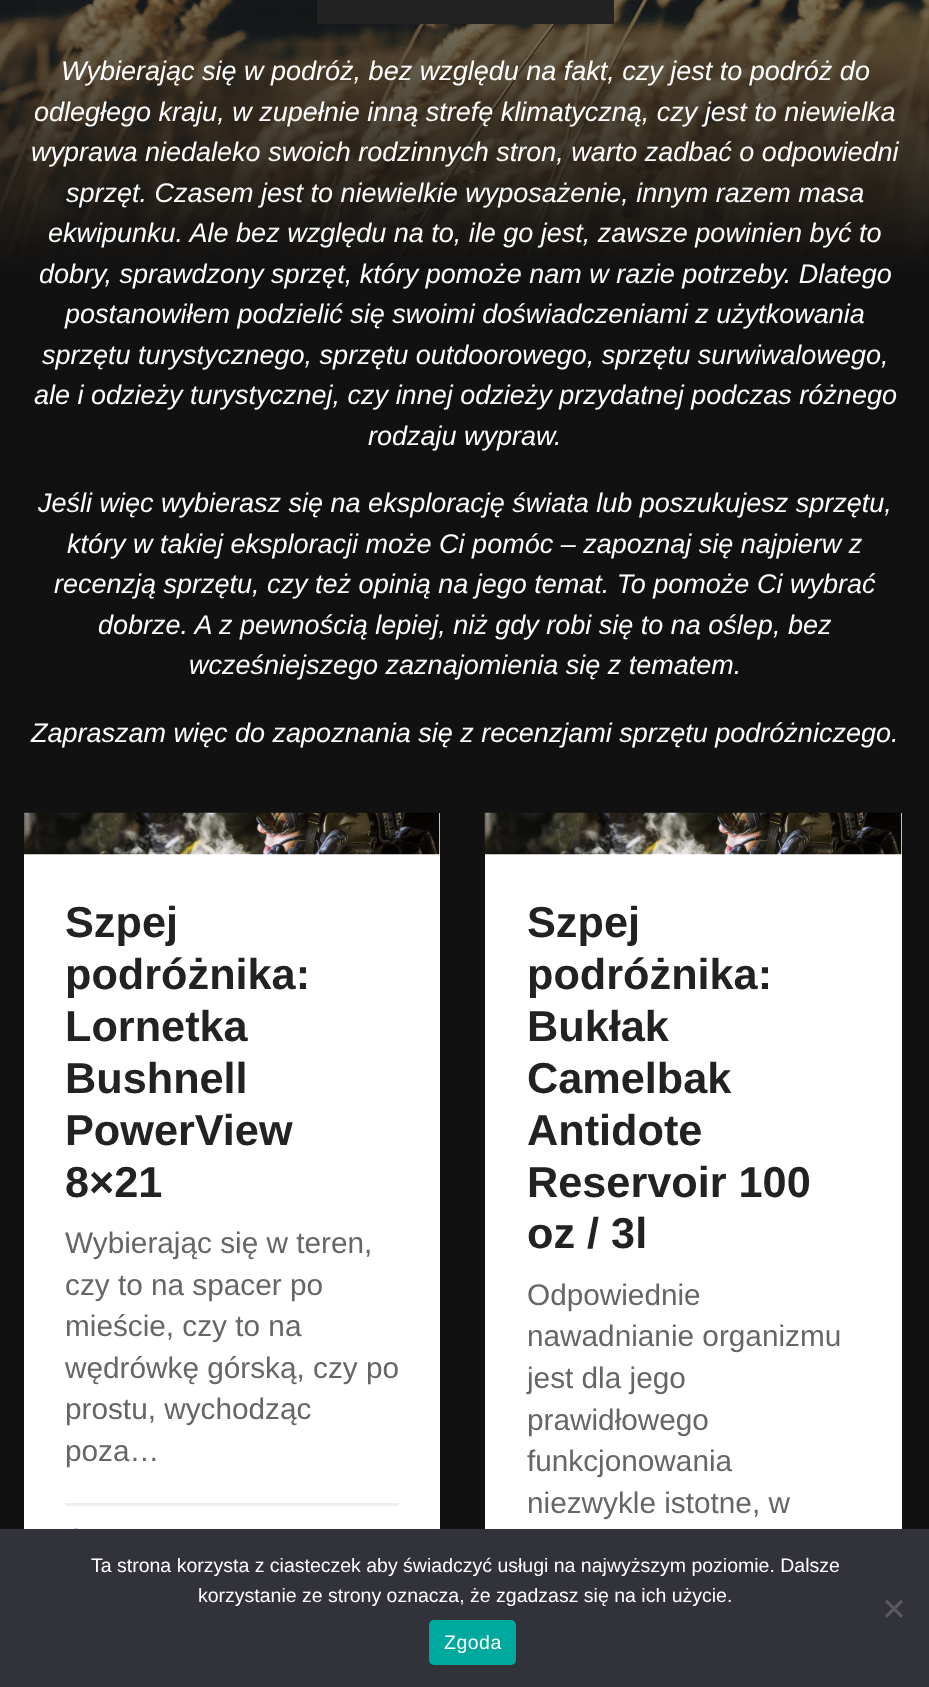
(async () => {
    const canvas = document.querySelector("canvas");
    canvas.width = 929;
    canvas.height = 1687;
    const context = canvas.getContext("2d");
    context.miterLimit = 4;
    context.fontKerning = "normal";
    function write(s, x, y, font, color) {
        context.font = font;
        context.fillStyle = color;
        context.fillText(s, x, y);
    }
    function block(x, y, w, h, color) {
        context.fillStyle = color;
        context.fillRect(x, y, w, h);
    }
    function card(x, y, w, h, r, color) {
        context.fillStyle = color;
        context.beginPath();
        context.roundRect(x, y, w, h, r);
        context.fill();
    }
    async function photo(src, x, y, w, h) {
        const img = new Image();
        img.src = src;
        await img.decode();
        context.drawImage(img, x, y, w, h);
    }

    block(0, 0, 929, 1687, "rgb(255, 255, 255)");
    await photo("media/1.png", 0, 0, 929, 269);
    block(317, 0, 297, 24, "rgb(34, 34, 34)");
    write("Wybierając się w podróż, bez względu na fakt, czy jest to podróż do", 61, 80, "italic 27px Liberation Sans", "rgb(255, 255, 255)");
    write("odległego kraju, w zupełnie inną strefę klimatyczną, czy jest to niewielka", 34, 121, "italic 27px Liberation Sans", "rgb(255, 255, 255)");
    write("wyprawa niedaleko swoich rodzinnych stron, warto zadbać o odpowiedni", 31, 161, "italic 27px Liberation Sans", "rgb(255, 255, 255)");
    write("sprzęt. Czasem jest to niewielkie wyposażenie, innym razem masa", 66, 202, "italic 27px Liberation Sans", "rgb(255, 255, 255)");
    write("ekwipunku. Ale bez względu na to, ile go jest, zawsze powinien być to", 48, 242, "italic 27px Liberation Sans", "rgb(255, 255, 255)");
    block(0, 269, 929, 1260, "rgb(17, 17, 17)");
    write("dobry, sprawdzony sprzęt, który pomoże nam w razie potrzeby. Dlatego", 39, 283, "italic 27px Liberation Sans", "rgb(255, 255, 255)");
    write("postanowiłem podzielić się swoimi doświadczeniami z użytkowania", 65, 323, "italic 27px Liberation Sans", "rgb(255, 255, 255)");
    write("sprzętu turystycznego, sprzętu outdoorowego, sprzętu surwiwalowego,", 42, 364, "italic 27px Liberation Sans", "rgb(255, 255, 255)");
    write("ale i odzieży turystycznej, czy innej odzieży przydatnej podczas różnego", 34, 404, "italic 27px Liberation Sans", "rgb(255, 255, 255)");
    write("rodzaju wypraw.", 368, 445, "italic 27px Liberation Sans", "rgb(255, 255, 255)");
    write("Jeśli więc wybierasz się na eksplorację świata lub poszukujesz sprzętu,", 38, 512, "italic 27px Liberation Sans", "rgb(255, 255, 255)");
    write("który w takiej eksploracji może Ci pomóc – zapoznaj się najpierw z", 67, 553, "italic 27px Liberation Sans", "rgb(255, 255, 255)");
    write("recenzją sprzętu, czy też opinią na jego temat. To pomoże Ci wybrać", 54, 593, "italic 27px Liberation Sans", "rgb(255, 255, 255)");
    write("dobrze. A z pewnością lepiej, niż gdy robi się to na oślep, bez", 98, 634, "italic 27px Liberation Sans", "rgb(255, 255, 255)");
    write("wcześniejszego zaznajomienia się z tematem.", 189, 674, "italic 27px Liberation Sans", "rgb(255, 255, 255)");
    write("Zapraszam więc do zapoznania się z recenzjami sprzętu podróżniczego.", 31, 742, "italic 27px Liberation Sans", "rgb(255, 255, 255)");
    block(24, 813, 416, 716, "rgb(255, 255, 255)");
    await photo("media/2.png", 24, 812, 416, 43);
    write("Szpej", 65, 937, "bold 43.25px Liberation Sans", "rgb(34, 34, 34)");
    write("podróżnika:", 65, 989, "bold 43.25px Liberation Sans", "rgb(34, 34, 34)");
    write("Lornetka", 65, 1041, "bold 43.25px Liberation Sans", "rgb(34, 34, 34)");
    write("Bushnell", 65, 1093, "bold 43.25px Liberation Sans", "rgb(34, 34, 34)");
    write("PowerView", 65, 1145, "bold 43.25px Liberation Sans", "rgb(34, 34, 34)");
    write("8×21", 65, 1197, "bold 43.25px Liberation Sans", "rgb(34, 34, 34)");
    write("Wybierając się w teren,", 65, 1253, "29.75px Liberation Sans", "rgb(102, 102, 102)");
    write("czy to na spacer po", 65, 1295, "29.75px Liberation Sans", "rgb(102, 102, 102)");
    write("mieście, czy to na", 65, 1336, "29.75px Liberation Sans", "rgb(102, 102, 102)");
    write("wędrówkę górską, czy po", 65, 1378, "29.75px Liberation Sans", "rgb(102, 102, 102)");
    write("prostu, wychodząc", 65, 1419, "29.75px Liberation Sans", "rgb(102, 102, 102)");
    write("poza…", 65, 1461, "29.75px Liberation Sans", "rgb(102, 102, 102)");
    block(65, 1503, 334, 3, "rgb(238, 238, 238)");
    await photo("media/3.png", 73, 1528, 6, 1);
    block(485, 813, 417, 716, "rgb(255, 255, 255)");
    await photo("media/4.png", 484, 812, 418, 43);
    write("Szpej", 527, 937, "bold 43.25px Liberation Sans", "rgb(34, 34, 34)");
    write("podróżnika:", 527, 989, "bold 43.25px Liberation Sans", "rgb(34, 34, 34)");
    write("Bukłak", 527, 1041, "bold 43.25px Liberation Sans", "rgb(34, 34, 34)");
    write("Camelbak", 527, 1093, "bold 43.25px Liberation Sans", "rgb(34, 34, 34)");
    write("Antidote", 527, 1145, "bold 43.25px Liberation Sans", "rgb(34, 34, 34)");
    write("Reservoir 100", 527, 1197, "bold 43.25px Liberation Sans", "rgb(34, 34, 34)");
    write("oz / 3l", 527, 1248, "bold 43.25px Liberation Sans", "rgb(34, 34, 34)");
    write("Odpowiednie", 527, 1305, "29.75px Liberation Sans", "rgb(102, 102, 102)");
    write("nawadnianie organizmu", 527, 1346, "29.75px Liberation Sans", "rgb(102, 102, 102)");
    write("jest dla jego", 527, 1388, "29.75px Liberation Sans", "rgb(102, 102, 102)");
    write("prawidłowego", 527, 1430, "29.75px Liberation Sans", "rgb(102, 102, 102)");
    write("funkcjonowania", 527, 1471, "29.75px Liberation Sans", "rgb(102, 102, 102)");
    write("niezwykle istotne, w", 527, 1513, "29.75px Liberation Sans", "rgb(102, 102, 102)");
    block(0, 1529, 929, 158, "rgb(50, 50, 58)");
    write("Ta strona korzysta z ciasteczek aby świadczyć usługi na najwyższym poziomie. Dalsze", 91, 1572, "19.5px Liberation Sans", "rgb(255, 255, 255)");
    write("korzystanie ze strony oznacza, że zgadzasz się na ich użycie.", 198, 1602, "19.5px Liberation Sans", "rgb(255, 255, 255)");
    context.fillStyle = "rgb(89, 89, 93)";
    context.beginPath();
    context.moveTo(901, 1599.5);
    context.lineTo(903, 1602);
    context.lineTo(887, 1618);
    context.lineTo(885, 1615.5);
    context.closePath();
    context.fill();
    context.beginPath();
    context.moveTo(885, 1602);
    context.lineTo(887, 1599.5);
    context.lineTo(903, 1615.5);
    context.lineTo(901, 1618);
    context.closePath();
    context.fill();
    card(429, 1620, 87, 45, 5, "rgb(0, 169, 157)");
    context.letterSpacing = "0.5px";
    write("Zgoda", 444, 1649, "19.5px Liberation Sans", "rgb(255, 255, 255)");
})();
